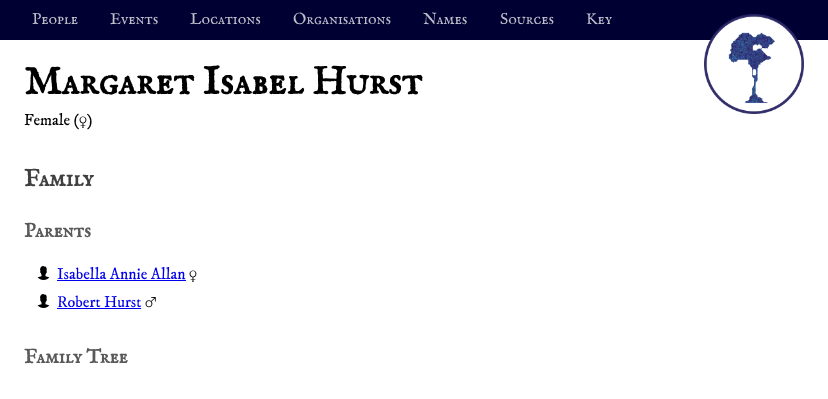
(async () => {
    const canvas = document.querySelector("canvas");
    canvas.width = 828;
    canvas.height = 399;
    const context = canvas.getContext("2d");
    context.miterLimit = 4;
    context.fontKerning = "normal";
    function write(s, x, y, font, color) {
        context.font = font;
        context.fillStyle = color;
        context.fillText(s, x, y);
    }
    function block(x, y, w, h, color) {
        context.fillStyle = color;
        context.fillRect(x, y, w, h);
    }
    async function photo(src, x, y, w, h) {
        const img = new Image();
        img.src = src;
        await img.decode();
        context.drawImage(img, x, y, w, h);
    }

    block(0, 0, 828, 399, "rgb(0, 0, 51)");
    write("People", 32, 24, "16px IM FELL English SC", "rgb(191, 191, 204)");
    write("Events", 110, 24, "16px IM FELL English SC", "rgb(191, 191, 204)");
    write("Locations", 190, 24, "16px IM FELL English SC", "rgb(191, 191, 204)");
    write("Organisations", 293, 24, "16px IM FELL English SC", "rgb(191, 191, 204)");
    write("Names", 423, 24, "16px IM FELL English SC", "rgb(191, 191, 204)");
    write("Sources", 500, 24, "16px IM FELL English SC", "rgb(191, 191, 204)");
    write("Key", 586, 24, "16px IM FELL English SC", "rgb(191, 191, 204)");
    block(0, 40, 828, 359, "rgb(255, 255, 255)");
    await photo("media/1.png", 704, 14, 100, 100);
    write("Margaret Isabel Hurst", 24, 94, "bold 40px IM FELL English SC", "rgb(0, 0, 0)");
    write("Female (", 24, 125, "16px IM FELL DW Pica", "rgb(0, 0, 0)");
    write("♀", 79, 125, "16px FreeSerif", "rgb(0, 0, 0)");
    write(")", 87, 125, "16px IM FELL DW Pica", "rgb(0, 0, 0)");
    write("Family", 24, 186, "bold 24px IM FELL English SC", "rgb(64, 64, 64)");
    write("Parents", 24, 237, "bold 20px IM FELL English SC", "rgb(89, 89, 89)");
    await photo("media/2.png", 37, 266, 13, 14);
    write("Isabella Annie Allan", 57, 279, "16px IM FELL DW Pica", "rgb(0, 0, 238)");
    write("♀", 189, 279, "16px FreeSerif", "rgb(0, 0, 0)");
    block(57, 280, 129, 1, "rgb(0, 0, 238)");
    await photo("media/2.png", 37, 294, 13, 14);
    write("Robert Hurst", 57, 307, "16px IM FELL DW Pica", "rgb(0, 0, 238)");
    block(57, 308, 84, 1, "rgb(0, 0, 238)");
    write("♂", 145, 307, "16px FreeSerif", "rgb(0, 0, 0)");
    write("Family Tree", 24, 363, "bold 20px IM FELL English SC", "rgb(89, 89, 89)");
})();
